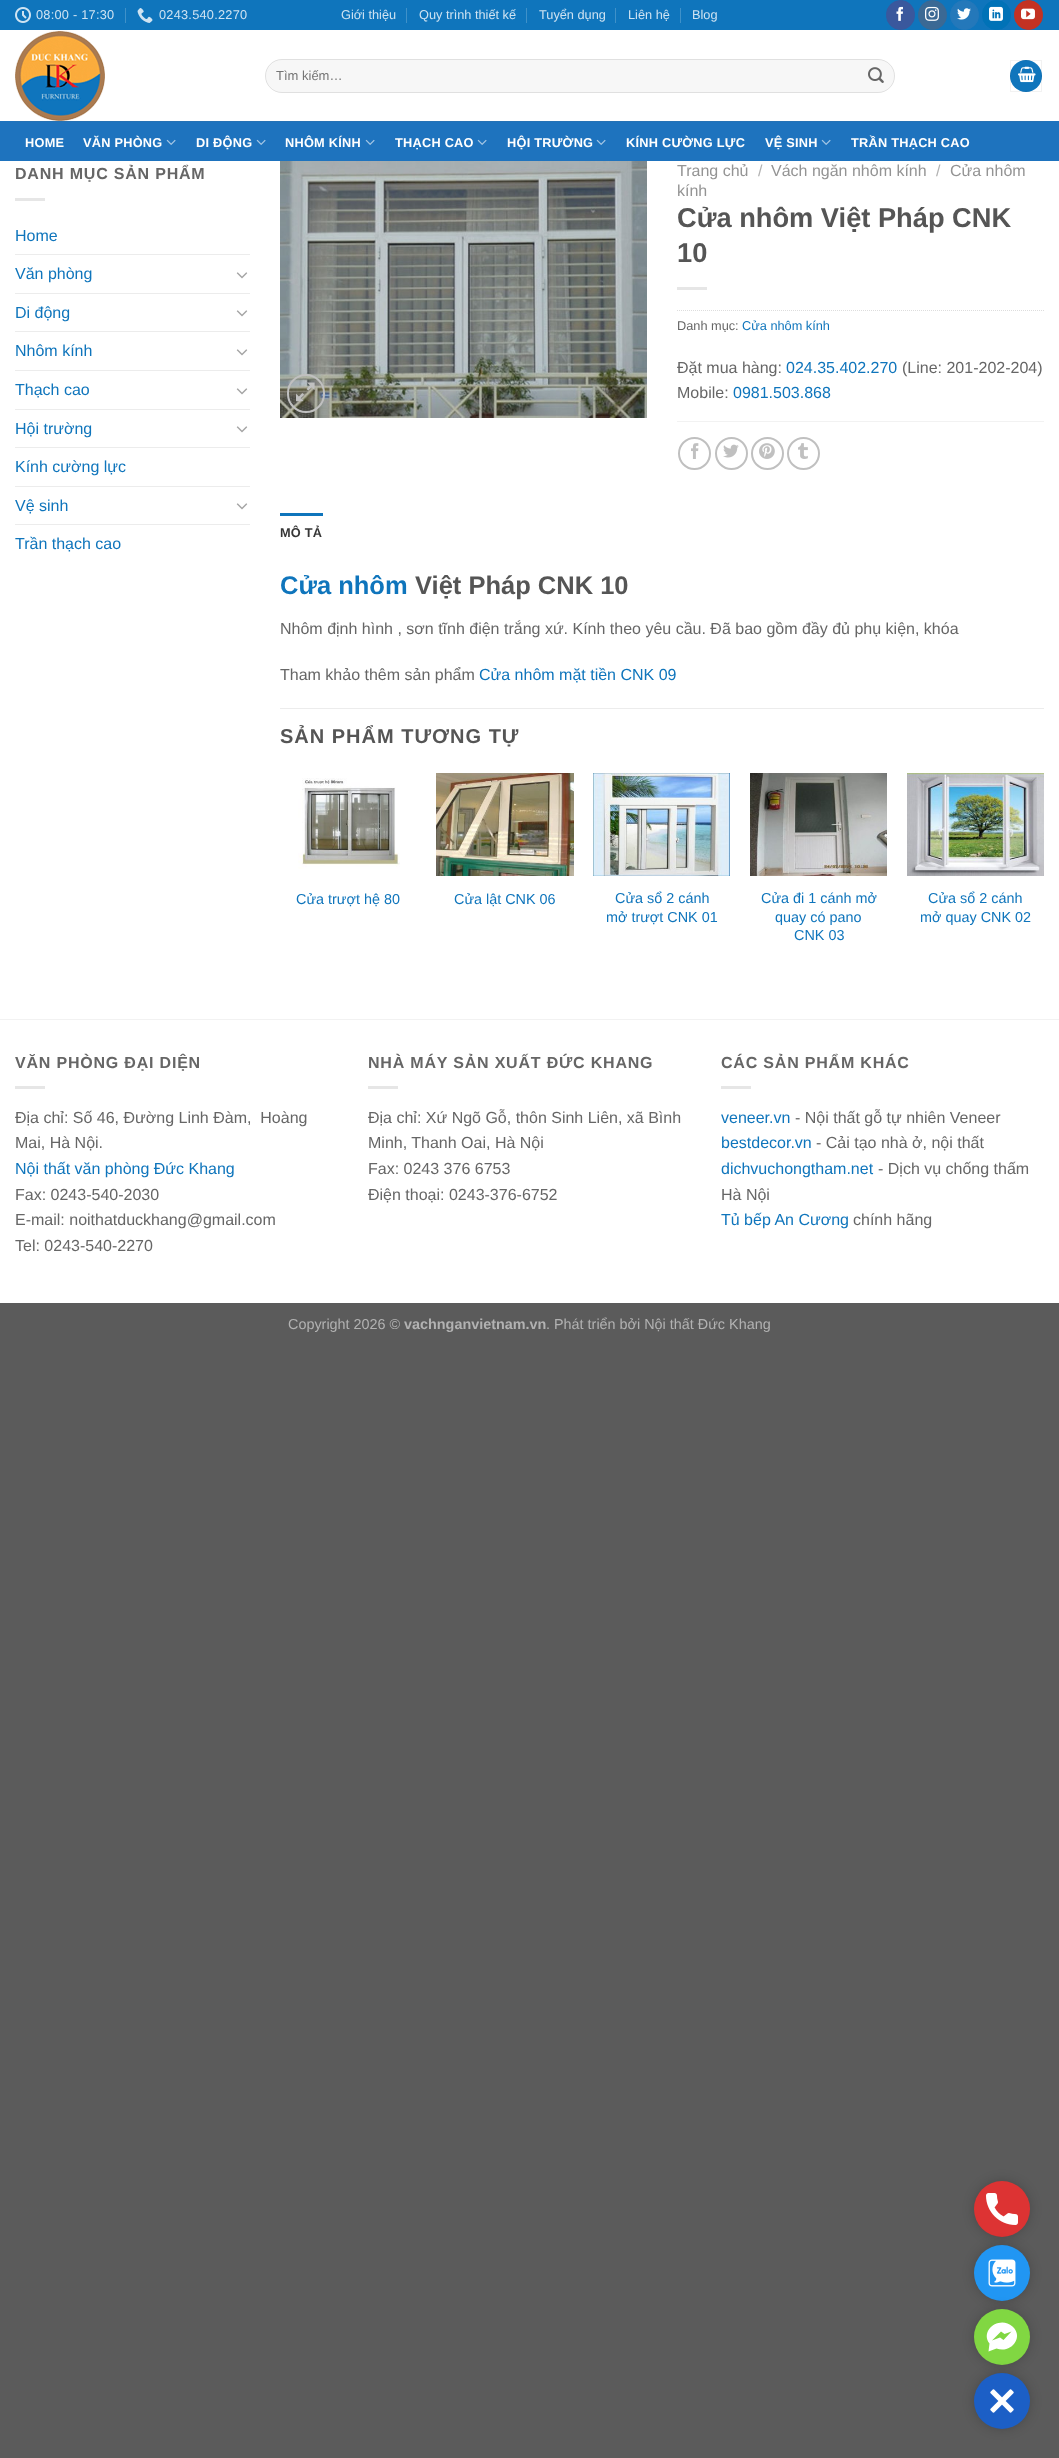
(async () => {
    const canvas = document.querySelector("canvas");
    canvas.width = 1059;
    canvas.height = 2458;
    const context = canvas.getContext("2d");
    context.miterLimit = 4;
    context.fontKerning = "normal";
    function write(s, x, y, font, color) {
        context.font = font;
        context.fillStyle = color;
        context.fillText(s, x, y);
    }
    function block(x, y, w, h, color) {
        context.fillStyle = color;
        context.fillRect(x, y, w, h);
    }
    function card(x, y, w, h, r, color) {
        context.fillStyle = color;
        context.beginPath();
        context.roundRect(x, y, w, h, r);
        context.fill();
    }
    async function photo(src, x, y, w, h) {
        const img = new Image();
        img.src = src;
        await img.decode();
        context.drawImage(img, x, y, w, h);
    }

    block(0, 0, 1059, 2458, "rgb(91, 91, 91)");
    block(0, 30, 1059, 1273, "rgb(255, 255, 255)");
    block(0, 0, 1059, 30, "rgb(15, 117, 188)");
    await photo("media/1.png", 15, 7, 16, 16);
    context.letterSpacing = "0.25px";
    write("08:00 - 17:30", 36, 19, "12.75px Liberation Sans", "rgb(207, 227, 242)");
    block(125, 8, 1, 15, "rgb(63, 145, 201)");
    await photo("media/2.png", 137, 8, 16, 15);
    write("0243.540.2270", 159, 19, "12.75px Liberation Sans", "rgb(207, 227, 242)");
    context.letterSpacing = "0px";
    write("Giới thiệu", 341, 19, "12.75px Liberation Sans", "rgb(207, 227, 242)");
    block(406, 8, 1, 15, "rgb(63, 145, 201)");
    write("Quy trình thiết kế", 419, 19, "12.75px Liberation Sans", "rgb(207, 227, 242)");
    block(526, 8, 1, 15, "rgb(63, 145, 201)");
    write("Tuyển dụng", 539, 19, "12.75px Liberation Sans", "rgb(207, 227, 242)");
    block(615, 8, 1, 15, "rgb(63, 145, 201)");
    write("Liên hệ", 628, 19, "12.75px Liberation Sans", "rgb(207, 227, 242)");
    block(680, 8, 1, 15, "rgb(63, 145, 201)");
    write("Blog", 692, 19, "12.75px Liberation Sans", "rgb(207, 227, 242)");
    context.fillStyle = "rgb(58, 88, 157)";
    context.beginPath();
    context.roundRect(886.5, 0.5, 28, 29, 14);
    context.fill();
    context.strokeStyle = "rgb(58, 88, 157)";
    context.stroke();
    await photo("media/3.png", 896, 6, 7, 15);
    context.fillStyle = "rgb(59, 105, 148)";
    context.beginPath();
    context.roundRect(918.5, 0.5, 28, 29, 14);
    context.fill();
    context.strokeStyle = "rgb(59, 105, 148)";
    context.stroke();
    await photo("media/4.png", 925, 6, 14, 15);
    context.fillStyle = "rgb(36, 120, 186)";
    context.beginPath();
    context.roundRect(950.5, 0.5, 28, 29, 14);
    context.fill();
    context.strokeStyle = "rgb(36, 120, 186)";
    context.stroke();
    await photo("media/5.png", 957, 8, 14, 12);
    context.fillStyle = "rgb(0, 114, 183)";
    context.beginPath();
    context.roundRect(982.5, 0.5, 28, 29, 14);
    context.fill();
    context.strokeStyle = "rgb(0, 114, 183)";
    context.stroke();
    await photo("media/6.png", 989, 6, 14, 15);
    context.fillStyle = "rgb(195, 50, 35)";
    context.beginPath();
    context.roundRect(1014.5, 0.5, 28, 29, 14);
    context.fill();
    context.strokeStyle = "rgb(195, 50, 35)";
    context.stroke();
    await photo("media/7.png", 1021, 8, 14, 12);
    await photo("media/8.png", 15, 31, 90, 90);
    card(265, 59, 630, 34, 17, "rgb(247, 247, 247)");
    context.beginPath();
    context.roundRect(265.5, 59.5, 629, 33, 16.5);
    context.strokeStyle = "rgba(0, 0, 0, 0.09)";
    context.stroke();
    write("Tìm kiếm…", 276, 80, "13px Liberation Sans", "rgb(117, 117, 117)");
    await photo("media/9.png", 868, 67, 16, 16);
    context.fillStyle = "rgb(15, 117, 188)";
    context.beginPath();
    context.arc(1026, 76, 16, 0, Math.PI * 2);
    context.fill();
    context.strokeStyle = "rgba(0, 0, 0, 0.05)";
    context.strokeRect(1010.5, 60.5, 31, 31);
    await photo("media/10.png", 1018, 66, 18, 17);
    block(0, 121, 1059, 40, "rgb(30, 115, 190)");
    block(15, 121, 1029, 1, "rgb(37, 114, 181)");
    context.letterSpacing = "0.25px";
    write("HOME", 25, 147, "bold 12.75px Liberation Sans", "rgb(255, 255, 255)");
    write("VĂN PHÒNG", 83, 147, "bold 12.75px Liberation Sans", "rgb(255, 255, 255)");
    await photo("media/11.png", 166, 139, 10, 6);
    write("DI ĐỘNG", 196, 147, "bold 12.75px Liberation Sans", "rgb(255, 255, 255)");
    await photo("media/11.png", 256, 139, 10, 6);
    write("NHÔM KÍNH", 285, 147, "bold 12.75px Liberation Sans", "rgb(255, 255, 255)");
    await photo("media/11.png", 365, 139, 10, 6);
    write("THẠCH CAO", 395, 147, "bold 12.75px Liberation Sans", "rgb(255, 255, 255)");
    await photo("media/11.png", 477, 139, 10, 6);
    write("HỘI TRƯỜNG", 507, 147, "bold 12.75px Liberation Sans", "rgb(255, 255, 255)");
    await photo("media/11.png", 596, 139, 10, 6);
    write("KÍNH CƯỜNG LỰC", 626, 147, "bold 12.75px Liberation Sans", "rgb(255, 255, 255)");
    write("VỆ SINH", 765, 147, "bold 12.75px Liberation Sans", "rgb(255, 255, 255)");
    await photo("media/11.png", 821, 139, 10, 6);
    write("TRẦN THẠCH CAO", 851, 147, "bold 12.75px Liberation Sans", "rgb(255, 255, 255)");
    context.letterSpacing = "0.8px";
    write("DANH MỤC SẢN PHẨM", 15, 179, "bold 16px Liberation Sans", "rgb(102, 102, 102)");
    block(15, 198, 30, 3, "rgb(230, 230, 230)");
    context.letterSpacing = "0px";
    write("Home", 15, 241, "16px Liberation Sans", "rgb(15, 117, 188)");
    block(15, 254, 235, 1, "rgb(236, 236, 236)");
    write("Văn phòng", 15, 279, "16px Liberation Sans", "rgb(15, 117, 188)");
    await photo("media/12.png", 236, 272, 12, 7);
    block(15, 293, 235, 1, "rgb(236, 236, 236)");
    write("Di động", 15, 318, "16px Liberation Sans", "rgb(15, 117, 188)");
    await photo("media/12.png", 236, 310, 12, 7);
    block(15, 331, 235, 1, "rgb(236, 236, 236)");
    write("Nhôm kính", 15, 356, "16px Liberation Sans", "rgb(15, 117, 188)");
    await photo("media/12.png", 236, 349, 12, 7);
    block(15, 370, 235, 1, "rgb(236, 236, 236)");
    write("Thạch cao", 15, 395, "16px Liberation Sans", "rgb(15, 117, 188)");
    await photo("media/12.png", 236, 388, 12, 7);
    block(15, 409, 235, 1, "rgb(236, 236, 236)");
    write("Hội trường", 15, 434, "16px Liberation Sans", "rgb(15, 117, 188)");
    await photo("media/12.png", 236, 426, 12, 7);
    block(15, 447, 235, 1, "rgb(236, 236, 236)");
    write("Kính cường lực", 15, 472, "16px Liberation Sans", "rgb(15, 117, 188)");
    block(15, 486, 235, 1, "rgb(236, 236, 236)");
    write("Vệ sinh", 15, 511, "16px Liberation Sans", "rgb(15, 117, 188)");
    await photo("media/12.png", 236, 503, 12, 7);
    block(15, 524, 235, 1, "rgb(236, 236, 236)");
    write("Trần thạch cao", 15, 549, "16px Liberation Sans", "rgb(15, 117, 188)");
    await photo("media/13.png", 280, 161, 367, 257);
    context.beginPath();
    context.roundRect(288, 375, 36, 37, 18);
    context.strokeStyle = "rgb(192, 192, 192)";
    context.lineWidth = 2;
    context.stroke();
    await photo("media/14.png", 296, 382, 19, 20);
    write("Trang chủ", 677, 176, "16px Liberation Sans", "rgb(148, 148, 148)");
    write("/", 758, 176, "16px Liberation Sans", "rgb(178, 178, 178)");
    write("Vách ngăn nhôm kính", 771, 176, "16px Liberation Sans", "rgb(148, 148, 148)");
    write("/", 936, 176, "16px Liberation Sans", "rgb(178, 178, 178)");
    write("Cửa nhôm", 950, 176, "16px Liberation Sans", "rgb(148, 148, 148)");
    write("kính", 677, 196, "16px Liberation Sans", "rgb(148, 148, 148)");
    write("Cửa nhôm Việt Pháp CNK", 677, 227, "bold 27.25px Liberation Sans", "rgb(85, 85, 85)");
    write("10", 677, 262, "bold 27.25px Liberation Sans", "rgb(85, 85, 85)");
    block(677, 287, 30, 3, "rgb(230, 230, 230)");
    context.beginPath();
    context.moveTo(677, 310.5);
    context.lineTo(1044, 310.5);
    context.strokeStyle = "rgb(221, 221, 221)";
    context.lineWidth = 1;
    context.setLineDash([1, 1]);
    context.stroke();
    write("Danh mục:", 677, 330, "12.75px Liberation Sans", "rgb(102, 102, 102)");
    write("Cửa nhôm kính", 742, 330, "12.75px Liberation Sans", "rgb(15, 117, 188)");
    write("Đặt mua hàng:", 677, 373, "16px Liberation Sans", "rgb(102, 102, 102)");
    write("024.35.402.270", 786, 373, "16px Liberation Sans", "rgb(15, 117, 188)");
    write("(Line: 201-202-204)", 902, 373, "16px Liberation Sans", "rgb(102, 102, 102)");
    write("Mobile:", 677, 398, "16px Liberation Sans", "rgb(102, 102, 102)");
    write("0981.503.868", 733, 398, "16px Liberation Sans", "rgb(15, 117, 188)");
    block(677, 421, 367, 1, "rgb(242, 242, 242)");
    context.beginPath();
    context.arc(694.5, 453.5, 15.5, 0, Math.PI * 2);
    context.strokeStyle = "rgb(192, 192, 192)";
    context.lineWidth = 2;
    context.setLineDash([]);
    context.stroke();
    await photo("media/15.png", 691, 443, 8, 16);
    context.beginPath();
    context.arc(731.5, 453.5, 15.5, 0, Math.PI * 2);
    context.stroke();
    await photo("media/16.png", 723, 444, 16, 14);
    context.beginPath();
    context.arc(767.5, 453.5, 15.5, 0, Math.PI * 2);
    context.stroke();
    await photo("media/17.png", 759, 443, 16, 16);
    context.beginPath();
    context.arc(803.5, 453.5, 15.5, 0, Math.PI * 2);
    context.stroke();
    await photo("media/18.png", 798, 443, 10, 16);
    block(280, 513, 43, 3, "rgb(15, 117, 188)");
    context.letterSpacing = "0.25px";
    write("MÔ TẢ", 280, 537, "bold 12.75px Liberation Sans", "rgb(54, 54, 54)");
    context.letterSpacing = "0px";
    write("Cửa nhôm", 280, 594, "bold 25.5px Liberation Sans", "rgb(15, 117, 188)");
    write("Việt Pháp CNK 10", 415, 594, "bold 25.5px Liberation Sans", "rgb(85, 85, 85)");
    write("Nhôm định hình , sơn tĩnh điện trắng xứ. Kính theo yêu cầu. Đã bao gồm đầy đủ phụ kiện, khóa", 280, 634, "16px Liberation Sans", "rgb(102, 102, 102)");
    write("Tham khảo thêm sản phẩm", 280, 680, "16px Liberation Sans", "rgb(102, 102, 102)");
    write("Cửa nhôm mặt tiền CNK 09", 479, 680, "16px Liberation Sans", "rgb(15, 117, 188)");
    block(280, 708, 764, 1, "rgb(236, 236, 236)");
    context.letterSpacing = "1px";
    write("SẢN PHẨM TƯƠNG TỰ", 280, 743, "bold 20px Liberation Sans", "rgb(85, 85, 85)");
    await photo("media/19.png", 298, 778, 102, 91);
    context.letterSpacing = "0px";
    write("Cửa trượt hệ 80", 296, 904, "14.4px Liberation Sans", "rgb(15, 117, 188)");
    await photo("media/20.png", 436, 773, 138, 103);
    write("Cửa lật CNK 06", 454, 904, "14.4px Liberation Sans", "rgb(15, 117, 188)");
    await photo("media/21.png", 593, 773, 137, 103);
    write("Cửa sổ 2 cánh", 615, 903, "14.4px Liberation Sans", "rgb(15, 117, 188)");
    write("mở trượt CNK 01", 606, 922, "14.4px Liberation Sans", "rgb(15, 117, 188)");
    await photo("media/22.png", 750, 773, 137, 103);
    write("Cửa đi 1 cánh mở", 761, 903, "14.4px Liberation Sans", "rgb(15, 117, 188)");
    write("quay có pano", 775, 922, "14.4px Liberation Sans", "rgb(15, 117, 188)");
    write("CNK 03", 794, 940, "14.4px Liberation Sans", "rgb(15, 117, 188)");
    await photo("media/23.png", 907, 773, 137, 103);
    write("Cửa sổ 2 cánh", 928, 903, "14.4px Liberation Sans", "rgb(15, 117, 188)");
    write("mở quay CNK 02", 920, 922, "14.4px Liberation Sans", "rgb(15, 117, 188)");
    block(0, 1019, 1059, 1, "rgb(242, 242, 242)");
    context.letterSpacing = "0.8px";
    write("VĂN PHÒNG ĐẠI DIỆN", 15, 1068, "bold 16px Liberation Sans", "rgb(102, 102, 102)");
    block(15, 1086, 30, 3, "rgb(230, 230, 230)");
    context.letterSpacing = "0px";
    write("Địa chỉ: Số 46, Đường Linh Đàm,  Hoàng", 15, 1123, "16px Liberation Sans", "rgb(102, 102, 102)");
    write("Mai, Hà Nội.", 15, 1148, "16px Liberation Sans", "rgb(102, 102, 102)");
    write("Nội thất văn phòng Đức Khang", 15, 1174, "16px Liberation Sans", "rgb(15, 117, 188)");
    write("Fax: 0243-540-2030", 15, 1200, "16px Liberation Sans", "rgb(102, 102, 102)");
    write("E-mail: noithatduckhang@gmail.com", 15, 1225, "16px Liberation Sans", "rgb(102, 102, 102)");
    write("Tel: 0243-540-2270", 15, 1251, "16px Liberation Sans", "rgb(102, 102, 102)");
    context.letterSpacing = "0.8px";
    write("NHÀ MÁY SẢN XUẤT ĐỨC KHANG", 368, 1068, "bold 16px Liberation Sans", "rgb(102, 102, 102)");
    block(368, 1086, 30, 3, "rgb(230, 230, 230)");
    context.letterSpacing = "0px";
    write("Địa chỉ: Xứ Ngõ Gỗ, thôn Sinh Liên, xã Bình", 368, 1123, "16px Liberation Sans", "rgb(102, 102, 102)");
    write("Minh, Thanh Oai, Hà Nội", 368, 1148, "16px Liberation Sans", "rgb(102, 102, 102)");
    write("Fax: 0243 376 6753", 368, 1174, "16px Liberation Sans", "rgb(102, 102, 102)");
    write("Điện thoại: 0243-376-6752", 368, 1200, "16px Liberation Sans", "rgb(102, 102, 102)");
    context.letterSpacing = "0.8px";
    write("CÁC SẢN PHẨM KHÁC", 721, 1068, "bold 16px Liberation Sans", "rgb(102, 102, 102)");
    block(721, 1086, 30, 3, "rgb(230, 230, 230)");
    context.letterSpacing = "0px";
    write("veneer.vn", 721, 1123, "16px Liberation Sans", "rgb(15, 117, 188)");
    write("- Nội thất gỗ tự nhiên Veneer", 795, 1123, "16px Liberation Sans", "rgb(102, 102, 102)");
    write("bestdecor.vn", 721, 1148, "16px Liberation Sans", "rgb(15, 117, 188)");
    write("- Cải tạo nhà ở, nội thất", 816, 1148, "16px Liberation Sans", "rgb(102, 102, 102)");
    write("dichvuchongtham.net", 721, 1174, "16px Liberation Sans", "rgb(15, 117, 188)");
    write("- Dịch vụ chống thấm", 878, 1174, "16px Liberation Sans", "rgb(102, 102, 102)");
    write("Hà Nội", 721, 1200, "16px Liberation Sans", "rgb(102, 102, 102)");
    write("Tủ bếp An Cương", 721, 1225, "16px Liberation Sans", "rgb(15, 117, 188)");
    write("chính hãng", 853, 1225, "16px Liberation Sans", "rgb(102, 102, 102)");
    write("Copyright 2026 ©", 288, 1329, "14.4px Liberation Sans", "rgb(178, 178, 178)");
    write("vachnganvietnam.vn", 404, 1329, "bold 14.4px Liberation Sans", "rgb(178, 178, 178)");
    write(". Phát triển bởi Nội thất Đức Khang", 546, 1329, "14.4px Liberation Sans", "rgb(178, 178, 178)");
    context.fillStyle = "rgba(0, 0, 0, 0.2)";
    context.filter = "blur(6px)";
    context.beginPath();
    context.roundRect(974, 2181, 56, 56, 28);
    context.fill();
    context.filter = "none";
    context.fillStyle = "rgb(221, 51, 51)";
    context.beginPath();
    context.arc(1002, 2209, 28, 0, Math.PI * 2);
    context.fill();
    await photo("media/24.png", 986, 2193, 32, 32);
    context.fillStyle = "rgba(0, 0, 0, 0.2)";
    context.filter = "blur(6px)";
    context.beginPath();
    context.roundRect(974, 2245, 56, 56, 28);
    context.fill();
    context.filter = "none";
    context.fillStyle = "rgb(33, 150, 243)";
    context.beginPath();
    context.arc(1002, 2273, 28, 0, Math.PI * 2);
    context.fill();
    await photo("media/25.png", 988, 2259, 28, 28);
    context.fillStyle = "rgba(0, 0, 0, 0.2)";
    context.filter = "blur(6px)";
    context.beginPath();
    context.roundRect(974, 2309, 56, 56, 28);
    context.fill();
    context.filter = "none";
    context.fillStyle = "rgb(129, 215, 66)";
    context.beginPath();
    context.arc(1002, 2337, 28, 0, Math.PI * 2);
    context.fill();
    context.fillStyle = "rgb(255, 255, 255)";
    context.beginPath();
    context.moveTo(1012.5, 2326.5);
    context.bezierCurveTo(1000, 2315, 979.5, 2330, 989.5, 2343.5);
    context.lineTo(988.5, 2351.5);
    context.lineTo(996.5, 2348.5);
    context.bezierCurveTo(1010.5, 2354, 1024.5, 2337.5, 1012.5, 2326.5);
    context.closePath();
    context.moveTo(1003.5, 2340);
    context.lineTo(1000, 2337.5);
    context.lineTo(992, 2340.5);
    context.lineTo(1001, 2331.5);
    context.lineTo(1004.5, 2334);
    context.lineTo(1011.5, 2331.5);
    context.closePath();
    context.fill();
    context.fillStyle = "rgba(0, 0, 0, 0.2)";
    context.filter = "blur(6px)";
    context.beginPath();
    context.roundRect(974, 2373, 56, 56, 28);
    context.fill();
    context.filter = "none";
    context.fillStyle = "rgb(28, 95, 198)";
    context.beginPath();
    context.arc(1002, 2401, 28, 0, Math.PI * 2);
    context.fill();
    await photo("media/26.png", 990, 2389, 24, 24);
})();
